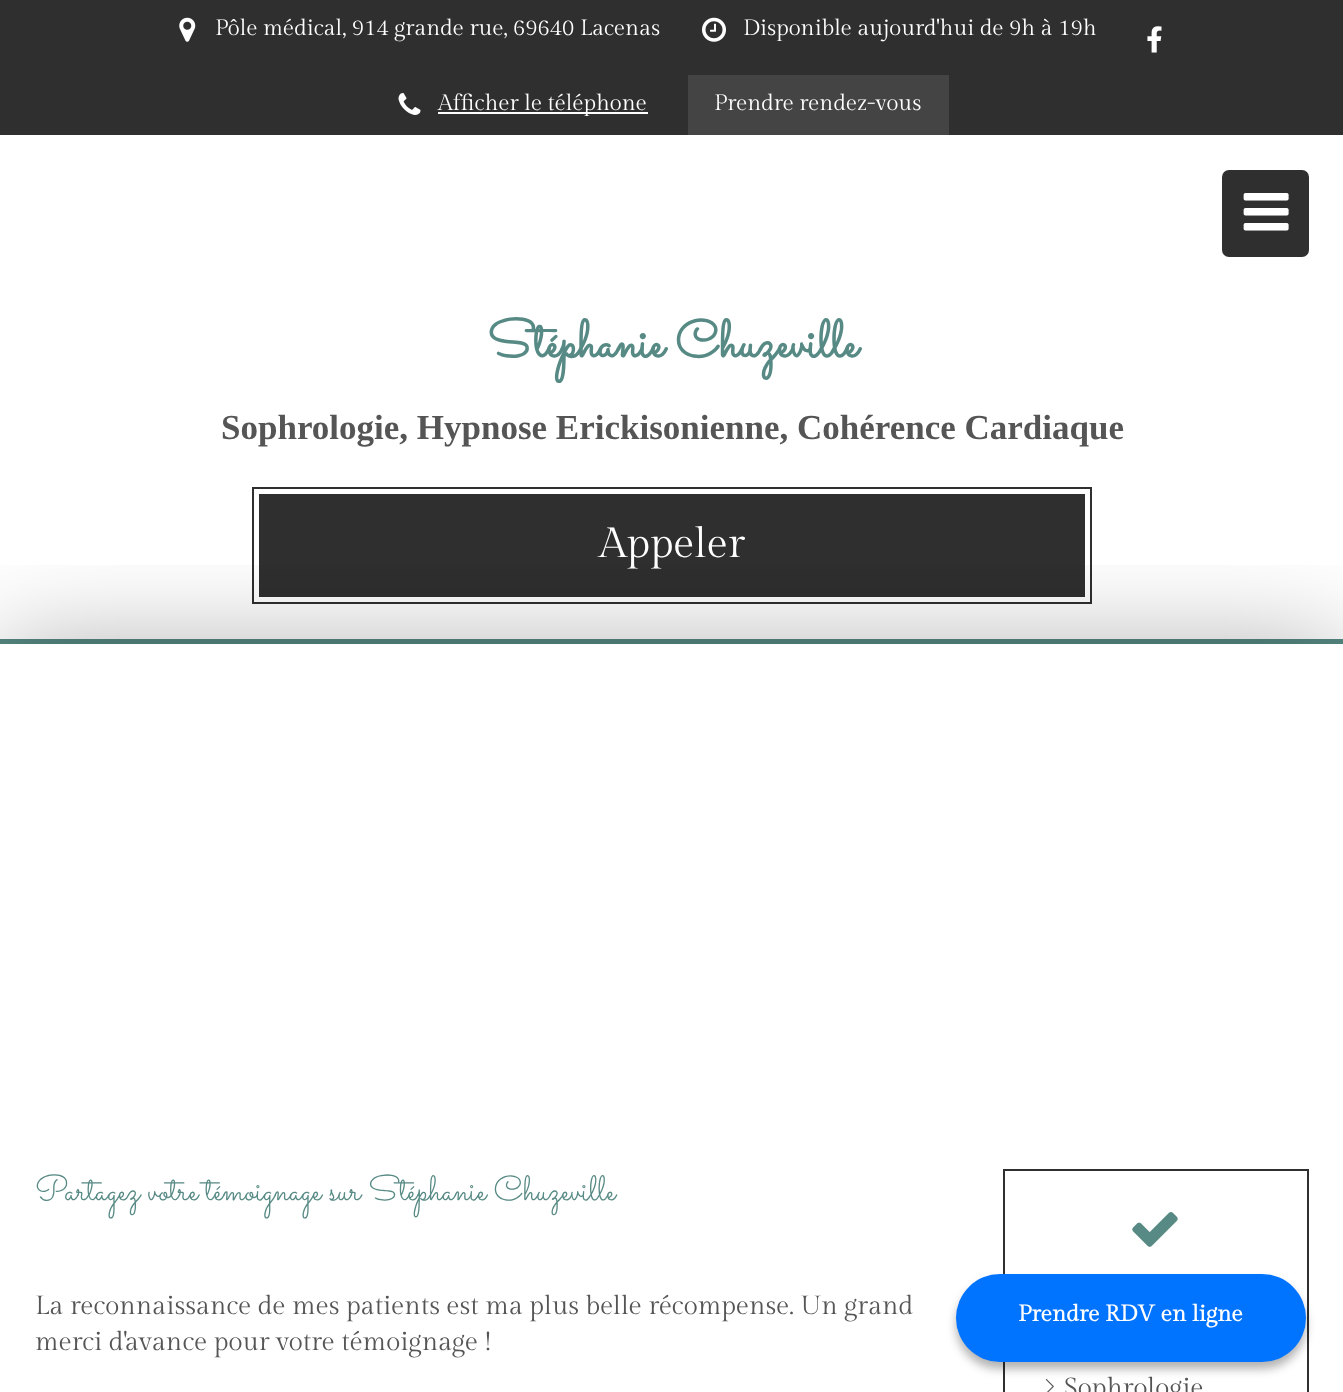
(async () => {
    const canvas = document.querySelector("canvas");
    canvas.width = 1343;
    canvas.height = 1392;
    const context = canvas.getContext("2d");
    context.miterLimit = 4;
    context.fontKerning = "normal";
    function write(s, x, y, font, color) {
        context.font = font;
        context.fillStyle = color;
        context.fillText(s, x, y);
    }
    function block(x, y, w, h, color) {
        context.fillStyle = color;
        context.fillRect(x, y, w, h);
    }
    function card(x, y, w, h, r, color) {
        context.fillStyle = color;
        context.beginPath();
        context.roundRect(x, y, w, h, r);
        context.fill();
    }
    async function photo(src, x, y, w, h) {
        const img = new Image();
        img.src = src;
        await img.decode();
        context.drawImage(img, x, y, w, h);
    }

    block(0, 0, 1343, 1392, "rgb(255, 255, 255)");
    block(0, 0, 1343, 135, "rgb(47, 47, 47)");
    await photo("media/1.png", 179, 17, 17, 25);
    write("Pôle médical, 914 grande rue, 69640 Lacenas", 215, 35, "22.3px Gilda Display", "rgb(255, 255, 255)");
    await photo("media/2.png", 702, 17, 24, 25);
    write("Disponible aujourd'hui de 9h à 19h", 743, 35, "22.3px Gilda Display", "rgb(255, 255, 255)");
    await photo("media/3.png", 1147, 26, 15, 27);
    await photo("media/4.png", 398, 93, 23, 22);
    block(438, 112, 210, 2, "rgb(255, 255, 255)");
    write("Afficher le téléphone", 438, 110, "22.3px Gilda Display", "rgb(255, 255, 255)");
    block(688, 75, 261, 60, "rgb(68, 68, 68)");
    write("Prendre rendez-vous", 714, 110, "22.3px Gilda Display", "rgb(255, 255, 255)");
    block(0, 639, 1343, 5, "rgb(87, 138, 132)");
    card(1222, 170, 87, 87, 7, "rgb(47, 47, 47)");
    await photo("media/5.png", 1243, 193, 46, 38);
    write("Stéphanie Chuzeville", 487, 357, "bold 52.5px Sacramento", "rgb(87, 138, 132)");
    write("Sophrologie, Hypnose Erickisonienne, Cohérence Cardiaque", 221, 439, "bold 35px Liberation Serif", "rgb(85, 85, 85)");
    context.strokeStyle = "rgb(47, 47, 47)";
    context.lineWidth = 2;
    context.strokeRect(253, 488, 838, 115);
    block(259, 494, 826, 103, "rgb(47, 47, 47)");
    write("Appeler", 599, 557, "42px Gilda Display", "rgb(255, 255, 255)");
    context.save();
    context.beginPath();
    context.rect(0, 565, 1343, 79);
    context.clip();
    context.fillStyle = "rgba(0, 0, 0, 0.3)";
    context.filter = "blur(52.5px)";
    context.beginPath();
    context.rect(0, 644, 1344, 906);
    context.fill();
    context.filter = "none";
    context.restore();
    write("Partagez votre témoignage sur Stéphanie Chuzeville", 35, 1200, "35px Sacramento", "rgb(87, 138, 132)");
    write("La reconnaissance de mes patients est ma plus belle récompense. Un grand", 35, 1314, "26.25px Gilda Display", "rgb(85, 85, 85)");
    write("merci d'avance pour votre témoignage !", 35, 1350, "26.25px Gilda Display", "rgb(85, 85, 85)");
    context.strokeRect(1004, 1170, 304, 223);
    await photo("media/6.png", 1132, 1212, 46, 35);
    await photo("media/7.png", 1045, 1379, 9, 13);
    write("Sophrologie", 1064, 1396, "26.25px Gilda Display", "rgb(85, 85, 85)");
    context.fillStyle = "rgba(0, 0, 0, 0.3)";
    context.filter = "blur(5px)";
    context.beginPath();
    context.roundRect(956, 1281, 350, 88, 44);
    context.fill();
    context.filter = "none";
    card(956, 1274, 350, 88, 44, "rgb(0, 115, 255)");
    write("Prendre RDV en ligne", 1018, 1321, "bold 22.75px Gilda Display", "rgb(255, 255, 255)");
})();
